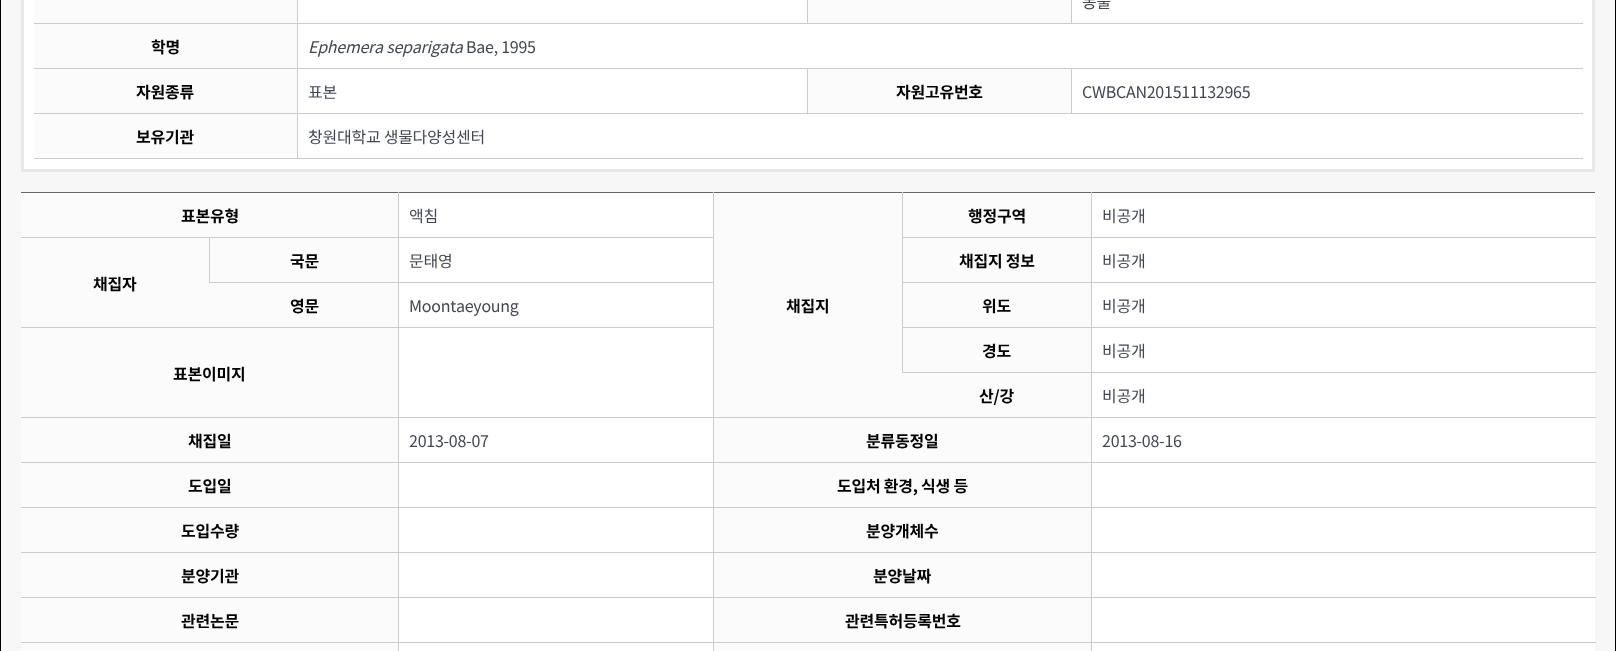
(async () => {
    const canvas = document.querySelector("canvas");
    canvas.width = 1616;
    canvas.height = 651;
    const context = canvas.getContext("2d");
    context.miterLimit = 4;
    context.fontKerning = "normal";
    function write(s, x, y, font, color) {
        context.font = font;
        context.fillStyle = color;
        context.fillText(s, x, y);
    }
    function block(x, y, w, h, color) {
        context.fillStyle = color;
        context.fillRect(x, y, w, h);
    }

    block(0, 0, 1616, 651, "rgb(247, 247, 247)");
    context.strokeStyle = "rgb(0, 0, 0)";
    context.strokeRect(0.5, -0.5, 1615, 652);
    context.fillStyle = "rgb(255, 255, 255)";
    context.beginPath();
    context.rect(22.5, -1.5, 1571, 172);
    context.fill();
    context.strokeStyle = "rgb(232, 232, 232)";
    context.lineWidth = 3;
    context.stroke();
    block(34, 0, 263, 23, "rgb(251, 251, 251)");
    block(1071, 23, 512, 1, "rgb(204, 204, 204)");
    block(1071, 0, 1, 24, "rgb(204, 204, 204)");
    block(807, 23, 265, 1, "rgb(204, 204, 204)");
    block(807, 0, 1, 24, "rgb(204, 204, 204)");
    block(1071, 113, 512, 1, "rgb(204, 204, 204)");
    block(1071, 68, 1, 46, "rgb(204, 204, 204)");
    block(807, 113, 265, 1, "rgb(204, 204, 204)");
    block(807, 68, 1, 46, "rgb(204, 204, 204)");
    block(297, 158, 1286, 1, "rgb(204, 204, 204)");
    block(297, 113, 1, 46, "rgb(204, 204, 204)");
    block(297, 113, 511, 1, "rgb(204, 204, 204)");
    block(297, 68, 1, 46, "rgb(204, 204, 204)");
    block(297, 68, 1286, 1, "rgb(204, 204, 204)");
    block(297, 23, 1, 46, "rgb(204, 204, 204)");
    block(297, 23, 511, 1, "rgb(204, 204, 204)");
    block(297, 0, 1, 24, "rgb(204, 204, 204)");
    block(34, 23, 264, 1, "rgb(204, 204, 204)");
    block(808, 0, 263, 23, "rgb(251, 251, 251)");
    context.letterSpacing = "-0.25px";
    write("동물", 1082, 8, "16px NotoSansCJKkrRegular", "rgb(67, 71, 82)");
    block(34, 24, 263, 44, "rgb(251, 251, 251)");
    block(34, 68, 264, 1, "rgb(204, 204, 204)");
    write("학명", 151, 53, "16px 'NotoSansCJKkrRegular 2'", "rgb(0, 0, 0)");
    write("Ephemera separigata", 308, 53, "italic 16px NotoSansCJKkrRegular", "rgb(67, 71, 82)");
    write("Bae, 1995", 466, 53, "16px NotoSansCJKkrRegular", "rgb(67, 71, 82)");
    block(34, 69, 263, 44, "rgb(251, 251, 251)");
    block(34, 113, 264, 1, "rgb(204, 204, 204)");
    write("자원종류", 136, 98, "16px 'NotoSansCJKkrRegular 2'", "rgb(0, 0, 0)");
    write("표본", 308, 98, "16px NotoSansCJKkrRegular", "rgb(67, 71, 82)");
    block(808, 69, 263, 44, "rgb(251, 251, 251)");
    write("자원고유번호", 896, 98, "16px 'NotoSansCJKkrRegular 2'", "rgb(0, 0, 0)");
    write("CWBCAN201511132965", 1082, 98, "16px NotoSansCJKkrRegular", "rgb(67, 71, 82)");
    block(34, 114, 263, 44, "rgb(251, 251, 251)");
    block(34, 158, 264, 1, "rgb(204, 204, 204)");
    write("보유기관", 136, 143, "16px 'NotoSansCJKkrRegular 2'", "rgb(0, 0, 0)");
    write("창원대학교 생물다양성센터", 308, 143, "16px NotoSansCJKkrRegular", "rgb(67, 71, 82)");
    block(21, 192, 1574, 1, "rgb(102, 102, 102)");
    block(21, 193, 377, 44, "rgb(251, 251, 251)");
    block(1091, 643, 504, 8, "rgb(255, 255, 255)");
    block(1091, 642, 1, 9, "rgb(204, 204, 204)");
    block(1091, 642, 505, 1, "rgb(204, 204, 204)");
    block(1091, 597, 1, 46, "rgb(204, 204, 204)");
    block(1091, 597, 505, 1, "rgb(204, 204, 204)");
    block(1091, 552, 1, 46, "rgb(204, 204, 204)");
    block(1091, 552, 505, 1, "rgb(204, 204, 204)");
    block(1091, 507, 1, 46, "rgb(204, 204, 204)");
    block(1091, 507, 505, 1, "rgb(204, 204, 204)");
    block(1091, 462, 1, 46, "rgb(204, 204, 204)");
    block(1091, 462, 505, 1, "rgb(204, 204, 204)");
    block(1091, 417, 1, 46, "rgb(204, 204, 204)");
    block(1091, 417, 505, 1, "rgb(204, 204, 204)");
    block(1091, 372, 1, 46, "rgb(204, 204, 204)");
    block(902, 417, 190, 1, "rgb(204, 204, 204)");
    block(399, 643, 315, 8, "rgb(255, 255, 255)");
    block(713, 642, 1, 9, "rgb(204, 204, 204)");
    block(713, 642, 379, 1, "rgb(204, 204, 204)");
    block(713, 597, 1, 46, "rgb(204, 204, 204)");
    block(713, 597, 379, 1, "rgb(204, 204, 204)");
    block(713, 552, 1, 46, "rgb(204, 204, 204)");
    block(713, 552, 379, 1, "rgb(204, 204, 204)");
    block(713, 507, 1, 46, "rgb(204, 204, 204)");
    block(713, 507, 379, 1, "rgb(204, 204, 204)");
    block(713, 462, 1, 46, "rgb(204, 204, 204)");
    block(713, 462, 379, 1, "rgb(204, 204, 204)");
    block(713, 417, 1, 46, "rgb(204, 204, 204)");
    block(21, 643, 378, 8, "rgb(251, 251, 251)");
    block(398, 642, 1, 9, "rgb(204, 204, 204)");
    block(398, 642, 316, 1, "rgb(204, 204, 204)");
    block(398, 597, 1, 46, "rgb(204, 204, 204)");
    block(398, 597, 316, 1, "rgb(204, 204, 204)");
    block(398, 552, 1, 46, "rgb(204, 204, 204)");
    block(398, 552, 316, 1, "rgb(204, 204, 204)");
    block(398, 507, 1, 46, "rgb(204, 204, 204)");
    block(398, 507, 316, 1, "rgb(204, 204, 204)");
    block(398, 462, 1, 46, "rgb(204, 204, 204)");
    block(398, 462, 316, 1, "rgb(204, 204, 204)");
    block(398, 417, 1, 46, "rgb(204, 204, 204)");
    block(398, 417, 505, 1, "rgb(204, 204, 204)");
    block(398, 327, 1, 91, "rgb(204, 204, 204)");
    block(398, 327, 316, 1, "rgb(204, 204, 204)");
    block(398, 282, 1, 46, "rgb(204, 204, 204)");
    block(398, 282, 316, 1, "rgb(204, 204, 204)");
    block(713, 192, 1, 226, "rgb(204, 204, 204)");
    block(398, 237, 1, 46, "rgb(204, 204, 204)");
    block(398, 237, 316, 1, "rgb(204, 204, 204)");
    block(398, 192, 1, 46, "rgb(204, 204, 204)");
    block(21, 238, 189, 89, "rgb(251, 251, 251)");
    block(209, 282, 190, 1, "rgb(204, 204, 204)");
    block(209, 237, 1, 46, "rgb(204, 204, 204)");
    block(21, 237, 378, 1, "rgb(204, 204, 204)");
    write("표본유형", 181, 222, "16px 'NotoSansCJKkrRegular 2'", "rgb(0, 0, 0)");
    block(399, 193, 314, 44, "rgb(255, 255, 255)");
    write("액침", 409, 222, "16px NotoSansCJKkrRegular", "rgb(67, 71, 82)");
    block(903, 193, 188, 44, "rgb(251, 251, 251)");
    block(1091, 372, 505, 1, "rgb(204, 204, 204)");
    block(1091, 327, 1, 46, "rgb(204, 204, 204)");
    block(1091, 327, 505, 1, "rgb(204, 204, 204)");
    block(1091, 282, 1, 46, "rgb(204, 204, 204)");
    block(1091, 282, 505, 1, "rgb(204, 204, 204)");
    block(1091, 237, 1, 46, "rgb(204, 204, 204)");
    block(1091, 237, 505, 1, "rgb(204, 204, 204)");
    block(1091, 192, 1, 46, "rgb(204, 204, 204)");
    block(902, 372, 190, 1, "rgb(204, 204, 204)");
    block(902, 327, 1, 46, "rgb(204, 204, 204)");
    block(902, 327, 190, 1, "rgb(204, 204, 204)");
    block(902, 282, 1, 46, "rgb(204, 204, 204)");
    block(902, 282, 190, 1, "rgb(204, 204, 204)");
    block(902, 237, 1, 46, "rgb(204, 204, 204)");
    block(902, 237, 190, 1, "rgb(204, 204, 204)");
    block(902, 192, 1, 46, "rgb(204, 204, 204)");
    write("행정구역", 968, 222, "16px 'NotoSansCJKkrRegular 2'", "rgb(0, 0, 0)");
    block(1092, 193, 503, 44, "rgb(255, 255, 255)");
    write("비공개", 1102, 222, "16px NotoSansCJKkrRegular", "rgb(67, 71, 82)");
    block(714, 193, 188, 224, "rgb(251, 251, 251)");
    write("채집지", 786, 312, "16px 'NotoSansCJKkrRegular 2'", "rgb(0, 0, 0)");
    block(210, 238, 188, 44, "rgb(251, 251, 251)");
    write("국문", 290, 267, "16px 'NotoSansCJKkrRegular 2'", "rgb(0, 0, 0)");
    block(399, 238, 314, 44, "rgb(255, 255, 255)");
    write("문태영", 409, 267, "16px NotoSansCJKkrRegular", "rgb(67, 71, 82)");
    block(903, 238, 188, 44, "rgb(251, 251, 251)");
    write("채집지 정보", 959, 267, "16px 'NotoSansCJKkrRegular 2'", "rgb(0, 0, 0)");
    block(1092, 238, 503, 44, "rgb(255, 255, 255)");
    write("비공개", 1102, 267, "16px NotoSansCJKkrRegular", "rgb(67, 71, 82)");
    write("채집자", 93, 290, "16px 'NotoSansCJKkrRegular 2'", "rgb(0, 0, 0)");
    block(210, 283, 188, 44, "rgb(251, 251, 251)");
    block(21, 327, 378, 1, "rgb(204, 204, 204)");
    write("영문", 290, 312, "16px 'NotoSansCJKkrRegular 2'", "rgb(0, 0, 0)");
    block(399, 283, 314, 44, "rgb(255, 255, 255)");
    write("Moontaeyoung", 409, 312, "16px NotoSansCJKkrRegular", "rgb(67, 71, 82)");
    block(903, 283, 188, 44, "rgb(251, 251, 251)");
    write("위도", 982, 312, "16px 'NotoSansCJKkrRegular 2'", "rgb(0, 0, 0)");
    block(1092, 283, 503, 44, "rgb(255, 255, 255)");
    write("비공개", 1102, 312, "16px NotoSansCJKkrRegular", "rgb(67, 71, 82)");
    block(399, 328, 314, 89, "rgb(255, 255, 255)");
    block(903, 328, 188, 44, "rgb(251, 251, 251)");
    write("경도", 982, 357, "16px 'NotoSansCJKkrRegular 2'", "rgb(0, 0, 0)");
    block(1092, 328, 503, 44, "rgb(255, 255, 255)");
    write("비공개", 1102, 357, "16px NotoSansCJKkrRegular", "rgb(67, 71, 82)");
    block(21, 328, 377, 89, "rgb(251, 251, 251)");
    block(21, 417, 378, 1, "rgb(204, 204, 204)");
    write("표본이미지", 173, 380, "16px 'NotoSansCJKkrRegular 2'", "rgb(0, 0, 0)");
    block(902, 373, 189, 44, "rgb(251, 251, 251)");
    write("산/강", 979, 402, "16px 'NotoSansCJKkrRegular 2'", "rgb(0, 0, 0)");
    block(1092, 373, 503, 44, "rgb(255, 255, 255)");
    write("비공개", 1102, 402, "16px NotoSansCJKkrRegular", "rgb(67, 71, 82)");
    block(21, 418, 377, 44, "rgb(251, 251, 251)");
    block(21, 462, 378, 1, "rgb(204, 204, 204)");
    write("채집일", 188, 447, "16px 'NotoSansCJKkrRegular 2'", "rgb(0, 0, 0)");
    block(399, 418, 314, 44, "rgb(255, 255, 255)");
    write("2013-08-07", 409, 447, "16px NotoSansCJKkrRegular", "rgb(67, 71, 82)");
    block(714, 418, 377, 44, "rgb(251, 251, 251)");
    write("분류동정일", 866, 447, "16px 'NotoSansCJKkrRegular 2'", "rgb(0, 0, 0)");
    block(1092, 418, 503, 44, "rgb(255, 255, 255)");
    write("2013-08-16", 1102, 447, "16px NotoSansCJKkrRegular", "rgb(67, 71, 82)");
    block(21, 463, 377, 44, "rgb(251, 251, 251)");
    block(21, 507, 378, 1, "rgb(204, 204, 204)");
    write("도입일", 188, 492, "16px 'NotoSansCJKkrRegular 2'", "rgb(0, 0, 0)");
    block(399, 463, 314, 44, "rgb(255, 255, 255)");
    block(714, 463, 377, 44, "rgb(251, 251, 251)");
    write("도입처 환경, 식생 등", 837, 492, "16px 'NotoSansCJKkrRegular 2'", "rgb(0, 0, 0)");
    block(1092, 463, 503, 44, "rgb(255, 255, 255)");
    block(21, 508, 377, 44, "rgb(251, 251, 251)");
    block(21, 552, 378, 1, "rgb(204, 204, 204)");
    write("도입수량", 181, 537, "16px 'NotoSansCJKkrRegular 2'", "rgb(0, 0, 0)");
    block(399, 508, 314, 44, "rgb(255, 255, 255)");
    block(714, 508, 377, 44, "rgb(251, 251, 251)");
    write("분양개체수", 866, 537, "16px 'NotoSansCJKkrRegular 2'", "rgb(0, 0, 0)");
    block(1092, 508, 503, 44, "rgb(255, 255, 255)");
    block(21, 553, 377, 44, "rgb(251, 251, 251)");
    block(21, 597, 378, 1, "rgb(204, 204, 204)");
    write("분양기관", 181, 582, "16px 'NotoSansCJKkrRegular 2'", "rgb(0, 0, 0)");
    block(399, 553, 314, 44, "rgb(255, 255, 255)");
    block(714, 553, 377, 44, "rgb(251, 251, 251)");
    write("분양날짜", 873, 582, "16px 'NotoSansCJKkrRegular 2'", "rgb(0, 0, 0)");
    block(1092, 553, 503, 44, "rgb(255, 255, 255)");
    block(21, 598, 377, 44, "rgb(251, 251, 251)");
    block(21, 642, 378, 1, "rgb(204, 204, 204)");
    write("관련논문", 181, 627, "16px 'NotoSansCJKkrRegular 2'", "rgb(0, 0, 0)");
    block(399, 598, 314, 44, "rgb(255, 255, 255)");
    block(714, 598, 377, 44, "rgb(251, 251, 251)");
    write("관련특허등록번호", 845, 627, "16px 'NotoSansCJKkrRegular 2'", "rgb(0, 0, 0)");
    block(1092, 598, 503, 44, "rgb(255, 255, 255)");
    block(714, 643, 377, 8, "rgb(251, 251, 251)");
})();
